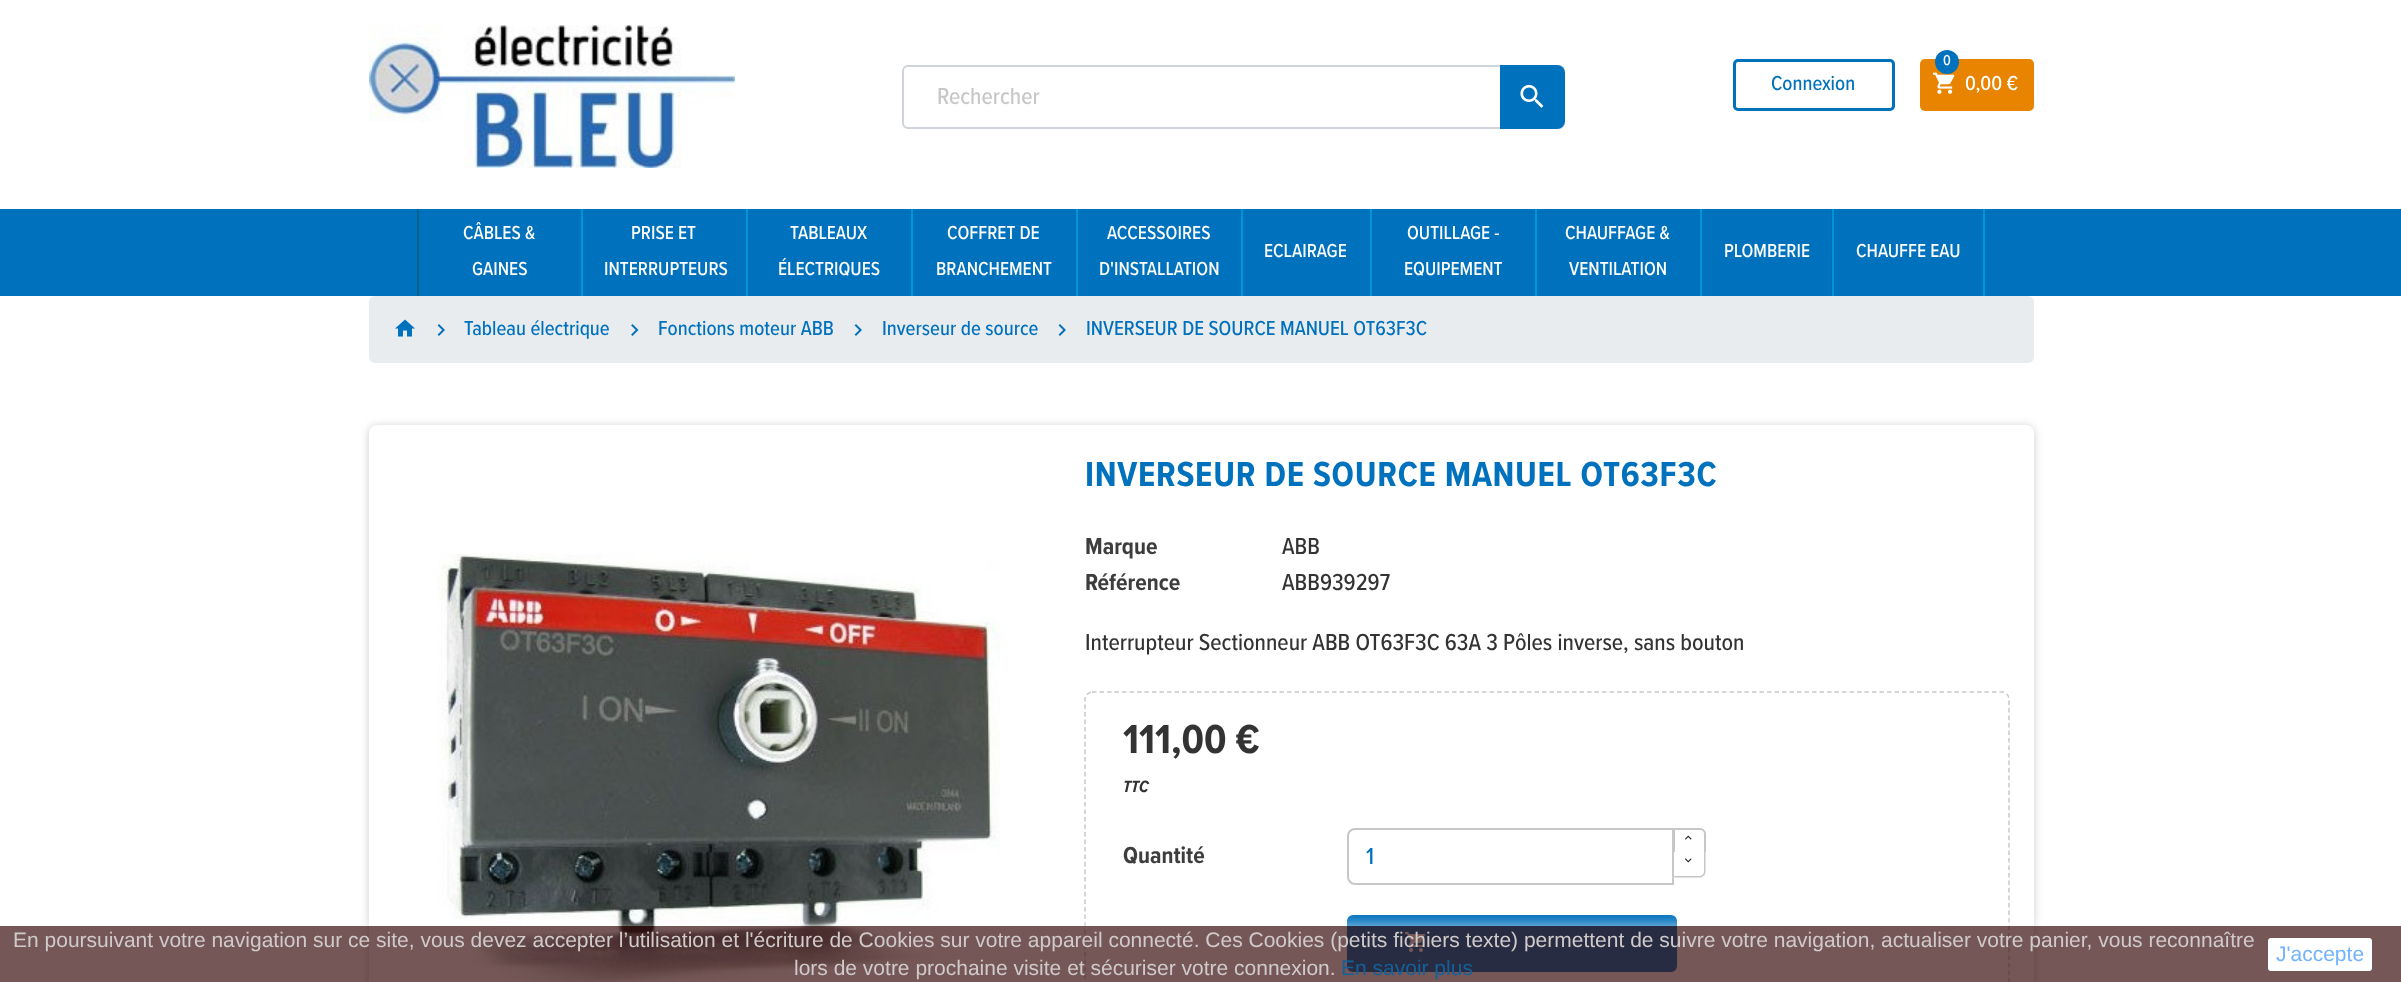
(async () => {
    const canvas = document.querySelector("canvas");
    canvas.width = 2401;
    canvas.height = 982;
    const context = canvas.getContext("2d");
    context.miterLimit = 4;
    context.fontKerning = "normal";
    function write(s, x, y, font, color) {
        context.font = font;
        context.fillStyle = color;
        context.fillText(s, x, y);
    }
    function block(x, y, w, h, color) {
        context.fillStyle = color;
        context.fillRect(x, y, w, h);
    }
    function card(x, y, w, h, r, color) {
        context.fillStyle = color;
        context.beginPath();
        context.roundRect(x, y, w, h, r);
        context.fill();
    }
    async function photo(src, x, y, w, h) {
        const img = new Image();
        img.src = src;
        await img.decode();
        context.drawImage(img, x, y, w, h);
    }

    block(0, 0, 2401, 982, "rgb(255, 255, 255)");
    await photo("media/1.png", 369, 25, 366, 143);
    context.beginPath();
    context.roundRect(1734.5, 60.5, 159, 49, 3.5);
    context.strokeStyle = "rgb(0, 113, 188)";
    context.lineWidth = 3;
    context.stroke();
    write("Connexion", 1771, 90, "500 21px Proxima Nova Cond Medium", "rgb(0, 113, 188)");
    card(1920, 59, 114, 52, 5, "rgb(233, 132, 0)");
    await photo("media/2.png", 1933, 72, 22, 22);
    context.fillStyle = "rgb(0, 113, 188)";
    context.beginPath();
    context.arc(1947, 62, 12, 0, Math.PI * 2);
    context.fill();
    write("0", 1943, 65, "500 15px Proxima Nova Cond Medium", "rgb(255, 255, 255)");
    write("0,00 €", 1965, 90, "500 21px Proxima Nova Cond Medium", "rgb(255, 255, 255)");
    context.beginPath();
    context.roundRect(903, 66, 661, 62, 5);
    context.strokeStyle = "rgb(206, 212, 218)";
    context.lineWidth = 2;
    context.stroke();
    write("Rechercher", 937, 104, "500 24px Proxima Nova Cond Medium", "rgb(199, 199, 199)");
    context.fillStyle = "rgb(0, 113, 188)";
    context.beginPath();
    context.roundRect(1500, 65, 65, 64, [0, 8, 8, 0]);
    context.fill();
    await photo("media/3.png", 1520, 84, 24, 24);
    block(0, 209, 2401, 87, "rgb(0, 113, 188)");
    block(581, 209, 2, 87, "rgb(0, 149, 212)");
    block(417, 209, 2, 87, "rgb(0, 99, 141)");
    write("CÂBLES &", 463, 239, "500 19.5px Proxima Nova Cond Medium", "rgb(255, 255, 255)");
    write("GAINES", 472, 275, "500 19.5px Proxima Nova Cond Medium", "rgb(255, 255, 255)");
    block(746, 209, 2, 87, "rgb(0, 149, 212)");
    write("PRISE ET", 631, 239, "500 19.5px Proxima Nova Cond Medium", "rgb(255, 255, 255)");
    write("INTERRUPTEURS", 604, 275, "500 19.5px Proxima Nova Cond Medium", "rgb(255, 255, 255)");
    block(911, 209, 2, 87, "rgb(0, 149, 212)");
    write("TABLEAUX", 790, 239, "500 19.5px Proxima Nova Cond Medium", "rgb(255, 255, 255)");
    write("ÉLECTRIQUES", 778, 275, "500 19.5px Proxima Nova Cond Medium", "rgb(255, 255, 255)");
    block(1076, 209, 2, 87, "rgb(0, 149, 212)");
    write("COFFRET DE", 947, 239, "500 19.5px Proxima Nova Cond Medium", "rgb(255, 255, 255)");
    write("BRANCHEMENT", 936, 275, "500 19.5px Proxima Nova Cond Medium", "rgb(255, 255, 255)");
    block(1241, 209, 2, 87, "rgb(0, 149, 212)");
    write("ACCESSOIRES", 1107, 239, "500 19.5px Proxima Nova Cond Medium", "rgb(255, 255, 255)");
    write("D'INSTALLATION", 1099, 275, "500 19.5px Proxima Nova Cond Medium", "rgb(255, 255, 255)");
    block(1370, 209, 2, 87, "rgb(0, 149, 212)");
    write("ECLAIRAGE", 1264, 257, "500 19.5px Proxima Nova Cond Medium", "rgb(255, 255, 255)");
    block(1535, 209, 2, 87, "rgb(0, 149, 212)");
    write("OUTILLAGE -", 1407, 239, "500 19.5px Proxima Nova Cond Medium", "rgb(255, 255, 255)");
    write("EQUIPEMENT", 1404, 275, "500 19.5px Proxima Nova Cond Medium", "rgb(255, 255, 255)");
    block(1700, 209, 2, 87, "rgb(0, 149, 212)");
    write("CHAUFFAGE &", 1565, 239, "500 19.5px Proxima Nova Cond Medium", "rgb(255, 255, 255)");
    write("VENTILATION", 1569, 275, "500 19.5px Proxima Nova Cond Medium", "rgb(255, 255, 255)");
    block(1832, 209, 2, 87, "rgb(0, 149, 212)");
    write("PLOMBERIE", 1724, 257, "500 19.5px Proxima Nova Cond Medium", "rgb(255, 255, 255)");
    block(1983, 209, 2, 87, "rgb(0, 149, 212)");
    write("CHAUFFE EAU", 1856, 257, "500 19.5px Proxima Nova Cond Medium", "rgb(255, 255, 255)");
    card(369, 296, 1665, 67, 6, "rgb(233, 236, 239)");
    await photo("media/4.png", 395, 319, 20, 18);
    await photo("media/5.png", 437, 324, 8, 12);
    write("Tableau électrique", 464, 335, "500 21px Proxima Nova Cond Medium", "rgb(0, 113, 188)");
    await photo("media/6.png", 631, 324, 8, 12);
    write("Fonctions moteur ABB", 658, 335, "500 21px Proxima Nova Cond Medium", "rgb(0, 113, 188)");
    await photo("media/5.png", 854, 324, 8, 12);
    write("Inverseur de source", 882, 335, "500 21px Proxima Nova Cond Medium", "rgb(0, 113, 188)");
    await photo("media/5.png", 1058, 324, 8, 12);
    write("INVERSEUR DE SOURCE MANUEL OT63F3C", 1086, 335, "500 21px Proxima Nova Cond Medium", "rgb(0, 113, 188)");
    context.fillStyle = "rgba(0, 0, 0, 0.2)";
    context.filter = "blur(4px)";
    context.beginPath();
    context.roundRect(369, 426, 1665, 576, 8);
    context.fill();
    context.filter = "none";
    card(369, 425, 1665, 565, 8, "rgb(255, 255, 255)");
    await photo("media/7.png", 437, 553, 563, 429);
    context.letterSpacing = "0.7px";
    write("INVERSEUR DE SOURCE MANUEL OT63F3C", 1085, 486, "bold 36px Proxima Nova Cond", "rgb(0, 113, 188)");
    context.letterSpacing = "0px";
    write("Marque", 1085, 554, "bold 24px Proxima Nova Cond", "rgb(61, 61, 61)");
    write("ABB", 1282, 554, "500 24px Proxima Nova Cond Medium", "rgb(51, 51, 51)");
    write("Référence", 1085, 590, "bold 24px Proxima Nova Cond", "rgb(61, 61, 61)");
    write("ABB939297", 1282, 590, "500 24px Proxima Nova Cond Medium", "rgb(51, 51, 51)");
    write("Interrupteur Sectionneur ABB OT63F3C 63A 3 Pôles inverse, sans bouton", 1085, 650, "500 24px Proxima Nova Cond Medium", "rgb(51, 51, 51)");
    context.beginPath();
    context.moveTo(1092, 692);
    context.lineTo(2002.5, 692);
    context.bezierCurveTo(2006, 692, 2009, 695.5, 2009, 699);
    context.lineTo(2009, 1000.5);
    context.bezierCurveTo(2009, 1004, 2006, 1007, 2002.5, 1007);
    context.lineTo(1092, 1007);
    context.bezierCurveTo(1088.5, 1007, 1085, 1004, 1085, 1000.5);
    context.lineTo(1085, 699);
    context.bezierCurveTo(1085, 695.5, 1088.5, 692, 1092, 692);
    context.closePath();
    context.strokeStyle = "rgb(199, 199, 199)";
    context.lineWidth = 1.5;
    context.setLineDash([4.5, 3]);
    context.stroke();
    write("111,00 €", 1123, 753, "bold 42px Proxima Nova Cond", "rgb(51, 51, 51)");
    write("TTC", 1123, 792, "italic bold 17px Proxima Nova Cond", "rgb(51, 51, 51)");
    write("Quantité", 1123, 863, "bold 24px Proxima Nova Cond", "rgb(61, 61, 61)");
    context.beginPath();
    context.roundRect(1348, 829, 325, 55, [7, 0, 0, 7]);
    context.lineWidth = 2;
    context.setLineDash([]);
    context.stroke();
    write("1", 1366, 864, "500 24px Proxima Nova Cond Medium", "rgb(0, 113, 188)");
    context.fillStyle = "rgb(255, 255, 255)";
    context.beginPath();
    context.roundRect(1674, 829, 31, 25, [0, 5, 0, 0]);
    context.fill();
    context.stroke();
    await photo("media/8.png", 1685, 835, 7, 5);
    context.beginPath();
    context.roundRect(1673, 852, 33, 26, [0, 0, 6, 0]);
    context.fill();
    context.fillStyle = "rgb(199, 199, 199)";
    context.beginPath();
    context.moveTo(1672.5, 852);
    context.lineTo(1705.5, 852);
    context.lineTo(1705.5, 871.5);
    context.bezierCurveTo(1705.5, 875, 1703, 877.5, 1699.5, 877.5);
    context.lineTo(1672.5, 877.5);
    context.closePath();
    context.moveTo(1674, 852);
    context.lineTo(1704, 852);
    context.lineTo(1704, 871.5);
    context.bezierCurveTo(1704, 874, 1702, 876, 1699.5, 876);
    context.lineTo(1674, 876);
    context.closePath();
    context.fill("evenodd");
    await photo("media/9.png", 1685, 858, 7, 5);
    card(1347, 915, 330, 57, 6, "rgb(0, 113, 188)");
    await photo("media/10.png", 1405, 932, 20, 20);
    context.save();
    context.beginPath();
    context.rect(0, 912, 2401, 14);
    context.clip();
    context.fillStyle = "rgba(255, 255, 255, 0.7)";
    context.filter = "blur(7.5px)";
    context.beginPath();
    context.rect(0, 926, 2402, 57);
    context.fill();
    context.filter = "none";
    context.restore();
    block(0, 926, 2401, 56, "rgba(57, 16, 14, 0.7)");
    write("En poursuivant votre navigation sur ce site, vous devez accepter l’utilisation et l'écriture de Cookies sur votre appareil connecté. Ces Cookies (petits fichiers texte) permettent de suivre votre navigation, actualiser votre panier, vous reconnaître", 13, 947, "21px Liberation Sans", "rgb(209, 202, 202)");
    write("lors de votre prochaine visite et sécuriser votre connexion.", 794, 975, "21px Liberation Sans", "rgb(209, 202, 202)");
    write("En savoir plus", 1341, 975, "21px Liberation Sans", "rgb(20, 97, 154)");
    card(2268, 938, 104, 33, 3, "rgb(255, 255, 255)");
    write("J'accepte", 2276, 961, "21px Liberation Sans", "rgb(113, 179, 255)");
})();
